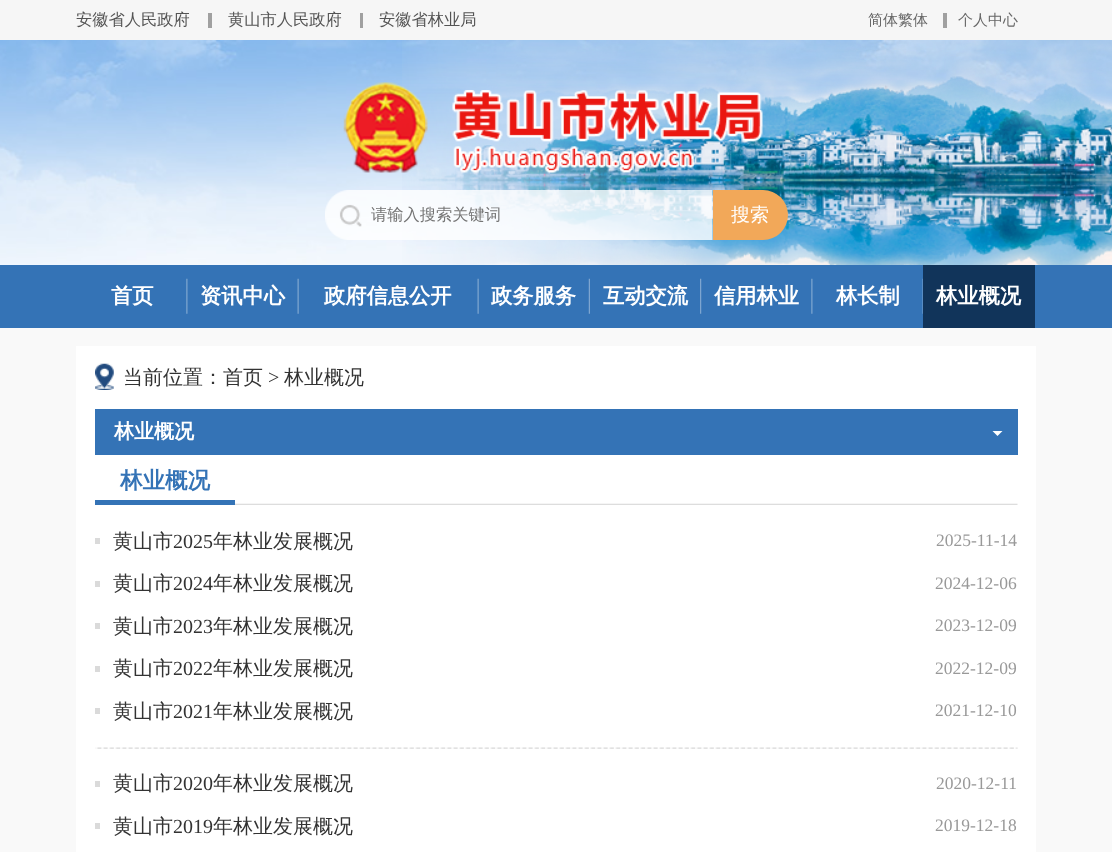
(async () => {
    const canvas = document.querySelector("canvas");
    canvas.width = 1112;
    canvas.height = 852;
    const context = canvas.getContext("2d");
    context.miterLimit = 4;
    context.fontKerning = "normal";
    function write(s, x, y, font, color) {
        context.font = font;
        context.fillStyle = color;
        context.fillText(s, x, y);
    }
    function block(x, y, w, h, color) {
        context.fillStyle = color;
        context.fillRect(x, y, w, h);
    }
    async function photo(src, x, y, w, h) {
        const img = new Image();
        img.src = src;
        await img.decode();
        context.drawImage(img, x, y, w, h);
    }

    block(0, 0, 1112, 852, "rgb(249, 249, 249)");
    block(0, 0, 1112, 40, "rgb(246, 246, 246)");
    write("安徽省人民政府", 76, 25, "500 16.25px WenQuanYi Zen Hei", "rgb(84, 84, 84)");
    block(208, 13, 4, 15, "rgb(160, 160, 160)");
    write("黄山市人民政府", 228, 25, "500 16.25px WenQuanYi Zen Hei", "rgb(84, 84, 84)");
    block(360, 13, 3, 15, "rgb(160, 160, 160)");
    write("安徽省林业局", 379, 25, "500 16.25px WenQuanYi Zen Hei", "rgb(84, 84, 84)");
    block(943, 13, 4, 15, "rgb(160, 160, 160)");
    write("简体繁体", 868, 25, "500 15px WenQuanYi Zen Hei", "rgb(102, 102, 102)");
    write("个人中心", 958, 25, "500 15px WenQuanYi Zen Hei", "rgb(102, 102, 102)");
    await photo("media/1.png", 0, 40, 1112, 225);
    await photo("media/2.png", 402, 40, 710, 225);
    await photo("media/3.png", 343, 82, 85, 91);
    await photo("media/4.png", 452, 90, 311, 83);
    await photo("media/5.png", 325, 190, 388, 50);
    write("请输入搜索关键词", 371, 220, "500 16.25px WenQuanYi Zen Hei", "rgb(117, 117, 117)");
    context.fillStyle = "rgb(242, 168, 89)";
    context.beginPath();
    context.roundRect(713, 190, 75, 50, [0, 25, 25, 0]);
    context.fill();
    write("搜索", 731, 221, "500 19px WenQuanYi Zen Hei", "rgb(255, 255, 255)");
    block(0, 265, 1112, 63, "rgb(52, 115, 182)");
    await photo("media/6.png", 186, 278, 2, 36);
    write("首页", 111, 303, "bold 21.25px WenQuanYi Zen Hei", "rgb(255, 255, 255)");
    await photo("media/7.png", 297, 278, 2, 36);
    write("资讯中心", 200, 303, "bold 21.25px WenQuanYi Zen Hei", "rgb(255, 255, 255)");
    await photo("media/7.png", 477, 278, 2, 36);
    write("政府信息公开", 324, 303, "bold 21.25px WenQuanYi Zen Hei", "rgb(255, 255, 255)");
    await photo("media/8.png", 588, 278, 2, 36);
    write("政务服务", 491, 303, "bold 21.25px WenQuanYi Zen Hei", "rgb(255, 255, 255)");
    await photo("media/9.png", 700, 278, 2, 36);
    write("互动交流", 603, 303, "bold 21.25px WenQuanYi Zen Hei", "rgb(255, 255, 255)");
    await photo("media/6.png", 811, 278, 2, 36);
    write("信用林业", 714, 303, "bold 21.25px WenQuanYi Zen Hei", "rgb(255, 255, 255)");
    await photo("media/10.png", 922, 278, 1, 36);
    write("林长制", 836, 303, "bold 21.25px WenQuanYi Zen Hei", "rgb(255, 255, 255)");
    block(923, 265, 112, 63, "rgb(17, 52, 90)");
    write("林业概况", 936, 303, "bold 21.25px WenQuanYi Zen Hei", "rgb(255, 255, 255)");
    block(76, 346, 960, 506, "rgb(255, 255, 255)");
    await photo("media/11.png", 95, 363, 19, 27);
    write("当前位置：首页", 123, 384, "500 20px WenQuanYi Zen Hei", "rgb(51, 51, 51)");
    write(">", 268, 384, "20px Liberation Serif", "rgb(51, 51, 51)");
    write("林业概况", 284, 384, "500 20px WenQuanYi Zen Hei", "rgb(51, 51, 51)");
    block(95, 409, 923, 46, "rgb(52, 115, 182)");
    write("林业概况", 114, 438, "bold 20px WenQuanYi Zen Hei", "rgb(255, 255, 255)");
    context.beginPath();
    context.moveTo(992.5, 431);
    context.lineTo(1002.5, 431);
    context.lineTo(997.5, 436);
    context.closePath();
    context.fill();
    await photo("media/12.png", 235, 503, 783, 2);
    block(95, 500, 140, 5, "rgb(52, 115, 182)");
    write("林业概况", 120, 488, "bold 22.5px WenQuanYi Zen Hei", "rgb(52, 115, 182)");
    block(95, 538, 5, 6, "rgb(218, 218, 218)");
    write("黄山市", 113, 548, "500 20px WenQuanYi Zen Hei", "rgb(51, 51, 51)");
    write("2025", 173, 548, "20px Liberation Serif", "rgb(51, 51, 51)");
    write("年林业发展概况", 213, 548, "500 20px WenQuanYi Zen Hei", "rgb(51, 51, 51)");
    write("2025-11-14", 936, 546, "17.5px Liberation Serif", "rgb(153, 153, 153)");
    block(95, 581, 5, 6, "rgb(218, 218, 218)");
    write("黄山市", 113, 590, "500 20px WenQuanYi Zen Hei", "rgb(51, 51, 51)");
    write("2024", 173, 590, "20px Liberation Serif", "rgb(51, 51, 51)");
    write("年林业发展概况", 213, 590, "500 20px WenQuanYi Zen Hei", "rgb(51, 51, 51)");
    write("2024-12-06", 935, 589, "17.5px Liberation Serif", "rgb(153, 153, 153)");
    block(95, 623, 5, 6, "rgb(218, 218, 218)");
    write("黄山市", 113, 633, "500 20px WenQuanYi Zen Hei", "rgb(51, 51, 51)");
    write("2023", 173, 633, "20px Liberation Serif", "rgb(51, 51, 51)");
    write("年林业发展概况", 213, 633, "500 20px WenQuanYi Zen Hei", "rgb(51, 51, 51)");
    write("2023-12-09", 935, 631, "17.5px Liberation Serif", "rgb(153, 153, 153)");
    block(95, 666, 5, 6, "rgb(218, 218, 218)");
    write("黄山市", 113, 675, "500 20px WenQuanYi Zen Hei", "rgb(51, 51, 51)");
    write("2022", 173, 675, "20px Liberation Serif", "rgb(51, 51, 51)");
    write("年林业发展概况", 213, 675, "500 20px WenQuanYi Zen Hei", "rgb(51, 51, 51)");
    write("2022-12-09", 935, 674, "17.5px Liberation Serif", "rgb(153, 153, 153)");
    block(95, 708, 5, 6, "rgb(218, 218, 218)");
    write("黄山市", 113, 718, "500 20px WenQuanYi Zen Hei", "rgb(51, 51, 51)");
    write("2021", 173, 718, "20px Liberation Serif", "rgb(51, 51, 51)");
    write("年林业发展概况", 213, 718, "500 20px WenQuanYi Zen Hei", "rgb(51, 51, 51)");
    write("2021-12-10", 935, 716, "17.5px Liberation Serif", "rgb(153, 153, 153)");
    await photo("media/13.png", 95, 747, 923, 2);
    block(95, 781, 5, 6, "rgb(218, 218, 218)");
    write("黄山市", 113, 790, "500 20px WenQuanYi Zen Hei", "rgb(51, 51, 51)");
    write("2020", 173, 790, "20px Liberation Serif", "rgb(51, 51, 51)");
    write("年林业发展概况", 213, 790, "500 20px WenQuanYi Zen Hei", "rgb(51, 51, 51)");
    write("2020-12-11", 936, 789, "17.5px Liberation Serif", "rgb(153, 153, 153)");
    block(95, 823, 5, 6, "rgb(218, 218, 218)");
    write("黄山市", 113, 833, "500 20px WenQuanYi Zen Hei", "rgb(51, 51, 51)");
    write("2019", 173, 833, "20px Liberation Serif", "rgb(51, 51, 51)");
    write("年林业发展概况", 213, 833, "500 20px WenQuanYi Zen Hei", "rgb(51, 51, 51)");
    write("2019-12-18", 935, 831, "17.5px Liberation Serif", "rgb(153, 153, 153)");
})();
